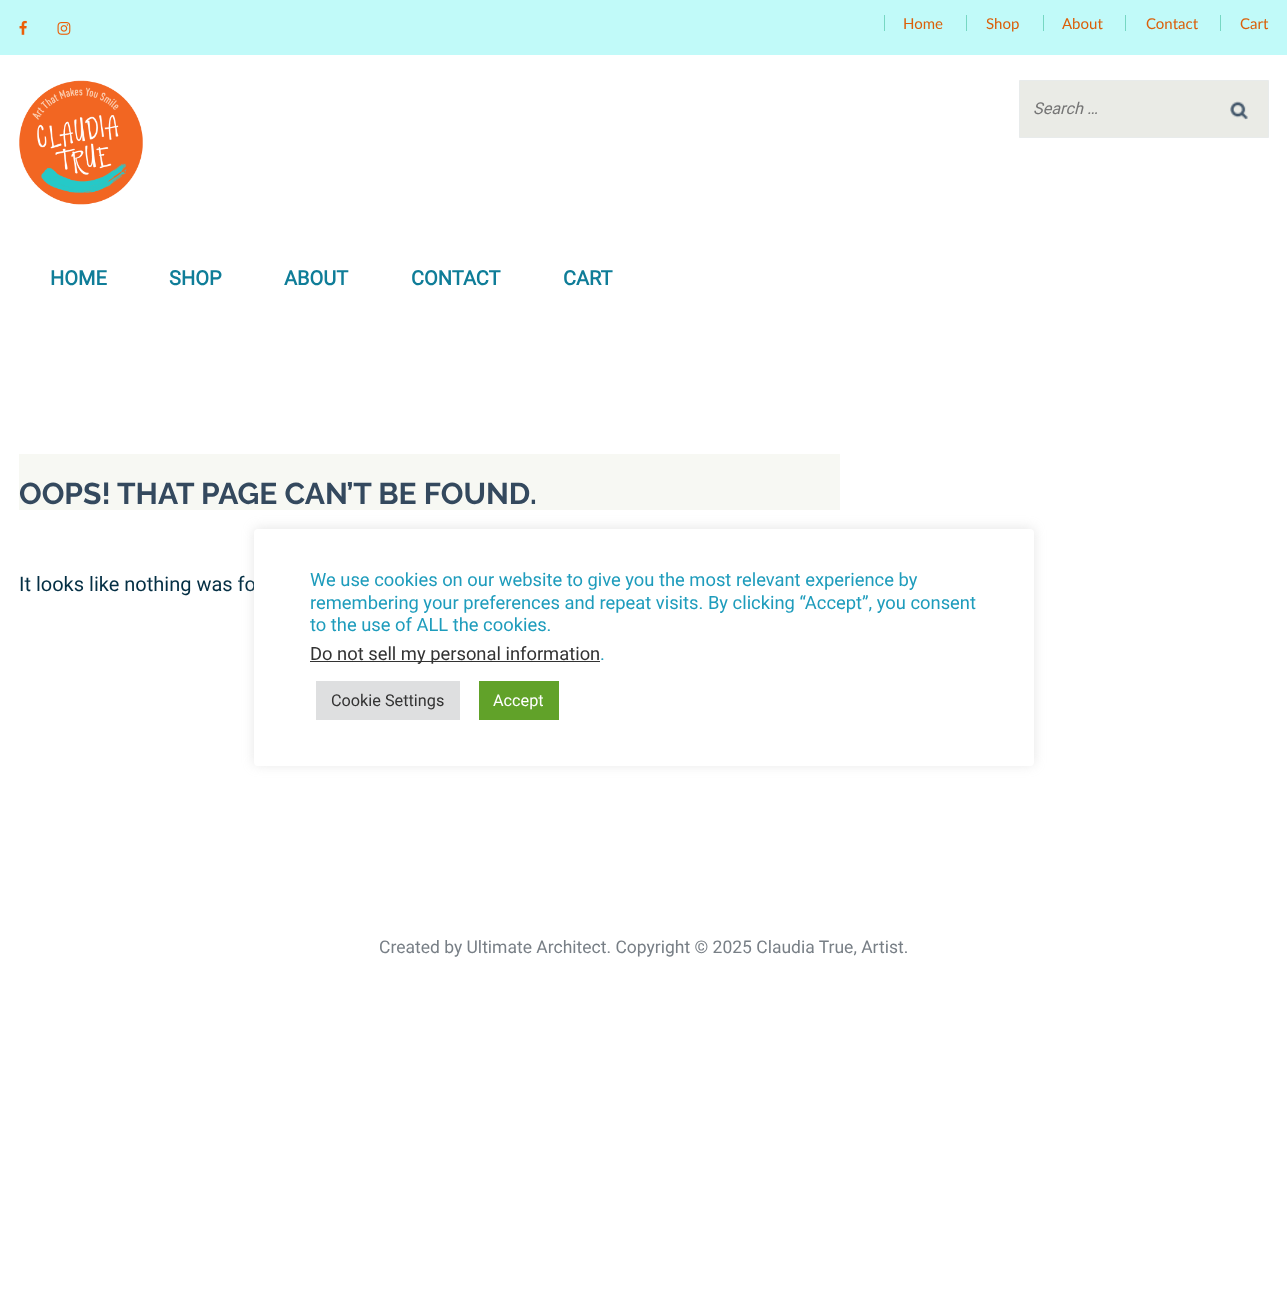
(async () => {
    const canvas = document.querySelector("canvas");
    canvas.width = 1287;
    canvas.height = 1289;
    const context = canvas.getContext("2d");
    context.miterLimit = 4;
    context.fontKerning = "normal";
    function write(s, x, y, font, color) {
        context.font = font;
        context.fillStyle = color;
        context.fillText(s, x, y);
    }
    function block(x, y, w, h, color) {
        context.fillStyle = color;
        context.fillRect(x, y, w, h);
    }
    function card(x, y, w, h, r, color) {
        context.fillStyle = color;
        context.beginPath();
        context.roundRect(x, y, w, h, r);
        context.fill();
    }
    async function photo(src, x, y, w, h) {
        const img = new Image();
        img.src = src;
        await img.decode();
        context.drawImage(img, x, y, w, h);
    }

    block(0, 0, 1287, 1289, "rgb(255, 255, 255)");
    block(0, 0, 1287, 55, "rgb(193, 250, 249)");
    await photo("media/1.png", 19, 20, 8, 15);
    await photo("media/2.png", 57, 22, 14, 13);
    block(884, 15, 1, 16, "rgb(118, 215, 195)");
    write("Home", 903, 29, "15px Lato", "rgb(219, 95, 9)");
    block(966, 15, 1, 16, "rgb(118, 215, 195)");
    write("Shop", 986, 29, "15px Lato", "rgb(219, 95, 9)");
    block(1043, 15, 1, 16, "rgb(118, 215, 195)");
    write("About", 1062, 29, "15px Lato", "rgb(219, 95, 9)");
    block(1125, 15, 1, 16, "rgb(118, 215, 195)");
    write("Contact", 1146, 29, "15px Lato", "rgb(219, 95, 9)");
    block(1220, 15, 1, 16, "rgb(118, 215, 195)");
    write("Cart", 1240, 29, "15px Lato", "rgb(219, 95, 9)");
    await photo("media/3.png", 19, 80, 124, 125);
    context.fillStyle = "rgb(234, 235, 230)";
    context.beginPath();
    context.rect(1019.5, 80.5, 249, 57);
    context.fill();
    context.strokeStyle = "rgb(232, 235, 235)";
    context.stroke();
    write("Search …", 1033, 114, "italic 16.25px Roboto", "rgb(117, 117, 117)");
    await photo("media/4.png", 1230, 101, 18, 19);
    write("HOME", 50, 285, "bold 20px Roboto", "rgb(15, 125, 152)");
    write("SHOP", 169, 285, "bold 20px Roboto", "rgb(15, 125, 152)");
    write("ABOUT", 284, 285, "bold 20px Roboto", "rgb(15, 125, 152)");
    write("CONTACT", 411, 285, "bold 20px Roboto", "rgb(15, 125, 152)");
    write("CART", 563, 285, "bold 20px Roboto", "rgb(15, 125, 152)");
    block(19, 454, 821, 56, "rgb(247, 248, 243)");
    write("OOPS! THAT PAGE CAN’T BE FOUND.", 19, 504, "bold 30px Raleway", "rgb(52, 73, 94)");
    write("It looks like nothing was fo", 19, 591, "20px Roboto", "rgb(4, 47, 68)");
    write("Created by Ultimate Architect. Copyright © 2025 Claudia True, Artist.", 379, 953, "17.5px Roboto", "rgb(120, 127, 134)");
    context.fillStyle = "rgba(172, 171, 171, 0.3)";
    context.filter = "blur(6px)";
    context.beginPath();
    context.roundRect(254, 528, 780, 237, 4);
    context.fill();
    context.filter = "none";
    card(254, 529, 780, 237, 4, "rgb(255, 255, 255)");
    write("We use cookies on our website to give you the most relevant experience by", 310, 586, "18.35px Roboto", "rgb(30, 156, 188)");
    write("remembering your preferences and repeat visits. By clicking “Accept”, you consent", 310, 609, "18.35px Roboto", "rgb(30, 156, 188)");
    write("to the use of ALL the cookies.", 310, 631, "18.35px Roboto", "rgb(30, 156, 188)");
    block(310, 661, 290, 1, "rgb(51, 51, 51)");
    write("Do not sell my personal information", 310, 660, "18.35px Roboto", "rgb(51, 51, 51)");
    write(".", 600, 660, "18.35px Roboto", "rgb(30, 156, 188)");
    block(316, 681, 144, 39, "rgb(222, 223, 224)");
    write("Cookie Settings", 331, 706, "16.25px Roboto", "rgb(51, 51, 51)");
    block(479, 681, 80, 39, "rgb(97, 162, 41)");
    write("Accept", 493, 706, "16.25px Roboto", "rgb(255, 255, 255)");
})();
